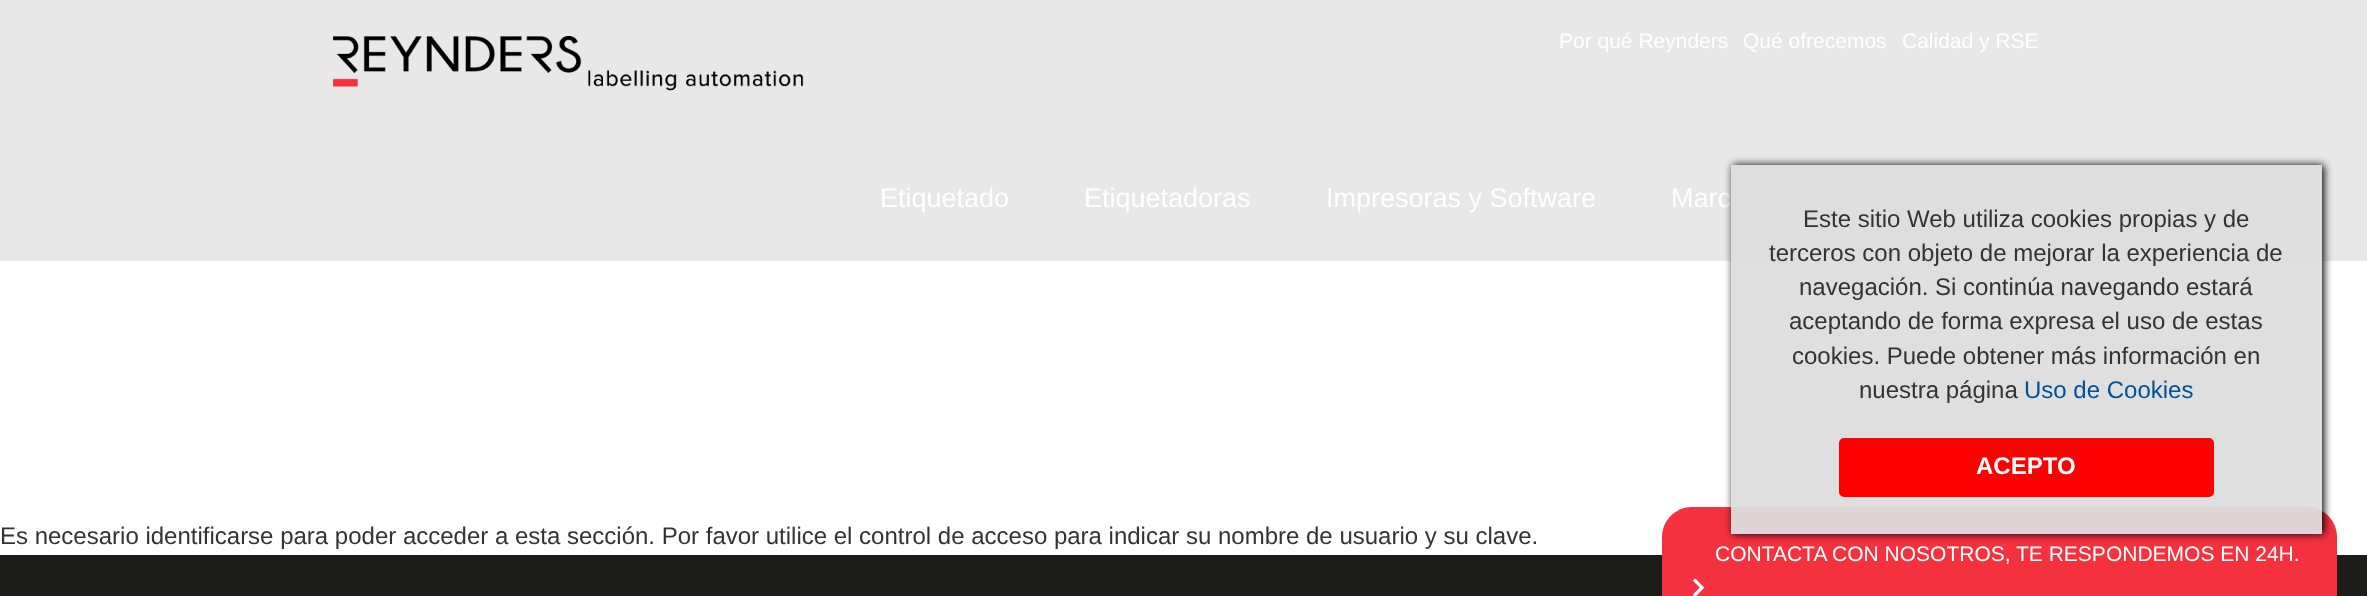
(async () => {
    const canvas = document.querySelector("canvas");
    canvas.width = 2367;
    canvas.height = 596;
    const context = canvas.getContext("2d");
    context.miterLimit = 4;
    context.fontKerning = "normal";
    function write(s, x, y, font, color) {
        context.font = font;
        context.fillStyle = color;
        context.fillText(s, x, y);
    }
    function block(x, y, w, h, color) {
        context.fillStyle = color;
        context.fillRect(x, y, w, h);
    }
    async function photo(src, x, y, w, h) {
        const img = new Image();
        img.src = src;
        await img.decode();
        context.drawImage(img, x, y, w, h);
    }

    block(0, 0, 2367, 596, "rgb(255, 255, 255)");
    block(0, 0, 2367, 261, "rgb(232, 232, 232)");
    await photo("media/1.png", 333, 36, 471, 55);
    write("Por qué Reynders", 1559, 48, "21px Liberation Sans", "rgb(255, 255, 255)");
    write("Qué ofrecemos", 1743, 48, "21px Liberation Sans", "rgb(255, 255, 255)");
    write("Calidad y RSE", 1902, 48, "21px Liberation Sans", "rgb(255, 255, 255)");
    write("Etiquetado", 880, 207, "27px Liberation Sans", "rgb(255, 255, 255)");
    write("Etiquetadoras", 1084, 207, "27px Liberation Sans", "rgb(255, 255, 255)");
    write("Impresoras y Software", 1326, 207, "27px Liberation Sans", "rgb(255, 255, 255)");
    write("Marc", 1671, 207, "27px Liberation Sans", "rgb(255, 255, 255)");
    block(0, 555, 2367, 41, "rgb(28, 28, 27)");
    context.fillStyle = "rgb(244, 49, 63)";
    context.beginPath();
    context.moveTo(1692, 507);
    context.lineTo(2307, 507);
    context.bezierCurveTo(2323.5, 507, 2337, 520.5, 2337, 537);
    context.lineTo(2337, 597);
    context.lineTo(1662, 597);
    context.lineTo(1662, 537);
    context.bezierCurveTo(1662, 520.5, 1675.5, 507, 1692, 507);
    context.closePath();
    context.fill();
    context.save();
    context.beginPath();
    context.moveTo(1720, 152);
    context.lineTo(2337, 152);
    context.lineTo(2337, 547);
    context.lineTo(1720, 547);
    context.closePath();
    context.moveTo(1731, 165);
    context.lineTo(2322, 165);
    context.lineTo(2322, 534);
    context.lineTo(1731, 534);
    context.closePath();
    context.clip("evenodd");
    context.fillStyle = "rgb(0, 0, 0)";
    context.filter = "blur(4px)";
    context.beginPath();
    context.rect(1733, 165, 591, 369);
    context.fill();
    context.filter = "none";
    context.restore();
    block(1731, 165, 591, 369, "rgba(221, 221, 221, 0.95)");
    write("Este sitio Web utiliza cookies propias y de", 1803, 227, "24px Liberation Sans", "rgb(51, 51, 51)");
    write("terceros con objeto de mejorar la experiencia de", 1769, 261, "24px Liberation Sans", "rgb(51, 51, 51)");
    write("navegación. Si continúa navegando estará", 1799, 295, "24px Liberation Sans", "rgb(51, 51, 51)");
    write("aceptando de forma expresa el uso de estas", 1789, 329, "24px Liberation Sans", "rgb(51, 51, 51)");
    write("cookies. Puede obtener más información en", 1792, 364, "24px Liberation Sans", "rgb(51, 51, 51)");
    write("nuestra página", 1859, 398, "24px Liberation Sans", "rgb(51, 51, 51)");
    write("Uso de Cookies", 2024, 398, "24px Liberation Sans", "rgb(0, 81, 149)");
    context.fillStyle = "rgb(255, 0, 0)";
    context.beginPath();
    context.roundRect(1840, 439, 373, 57, 4);
    context.fill();
    context.strokeStyle = "rgb(255, 0, 0)";
    context.lineWidth = 2;
    context.stroke();
    write("ACEPTO", 1976, 474, "bold 24px Liberation Sans", "rgb(255, 255, 255)");
    write("Es necesario identificarse para poder acceder a esta sección. Por favor utilice el control de acceso para indicar su nombre de usuario y su clave.", 0, 544, "24px Liberation Sans", "rgb(51, 51, 51)");
    write("CONTACTA CON NOSOTROS, TE RESPONDEMOS EN 24H.", 1715, 561, "21px Liberation Sans", "rgb(255, 255, 255)");
    await photo("media/2.png", 1693, 578, 11, 18);
})();
